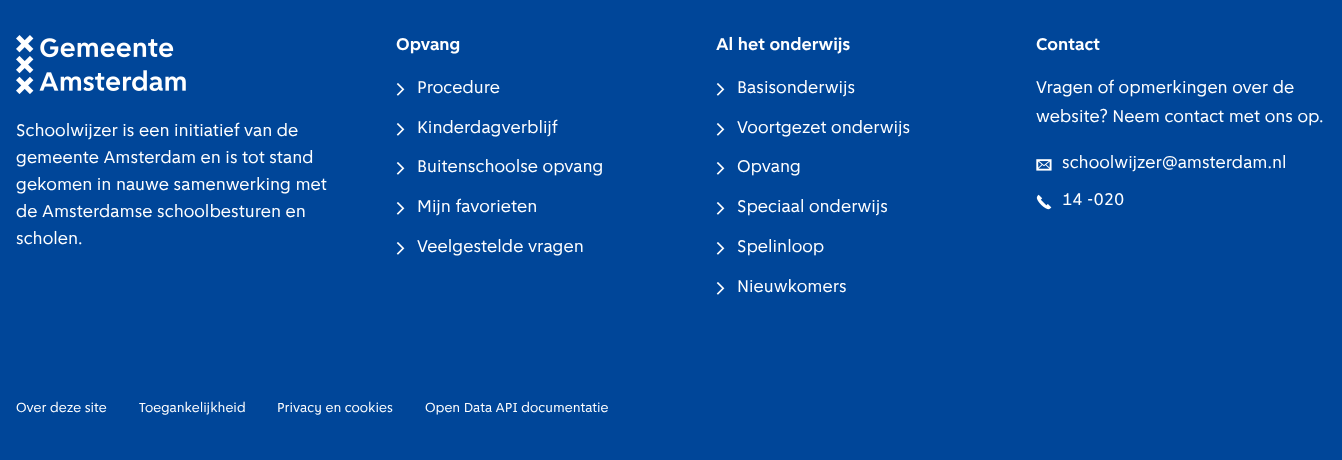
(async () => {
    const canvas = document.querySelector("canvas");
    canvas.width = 1342;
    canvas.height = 460;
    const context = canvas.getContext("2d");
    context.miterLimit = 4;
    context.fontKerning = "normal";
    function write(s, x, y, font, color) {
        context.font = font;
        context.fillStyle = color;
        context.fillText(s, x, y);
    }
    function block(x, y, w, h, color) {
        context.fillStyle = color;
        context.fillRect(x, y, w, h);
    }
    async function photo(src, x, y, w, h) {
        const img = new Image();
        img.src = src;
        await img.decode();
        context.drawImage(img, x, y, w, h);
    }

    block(0, 0, 1342, 460, "rgb(0, 70, 153)");
    await photo("media/1.png", 16, 35, 170, 59);
    write("Schoolwijzer is een initiatief van de", 16, 136, "18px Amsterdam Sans", "rgb(255, 255, 255)");
    write("gemeente Amsterdam en is tot stand", 16, 163, "18px Amsterdam Sans", "rgb(255, 255, 255)");
    write("gekomen in nauwe samenwerking met", 16, 190, "18px Amsterdam Sans", "rgb(255, 255, 255)");
    write("de Amsterdamse schoolbesturen en", 16, 217, "18px Amsterdam Sans", "rgb(255, 255, 255)");
    write("scholen.", 16, 244, "18px Amsterdam Sans", "rgb(255, 255, 255)");
    write("Opvang", 396, 50, "bold 18px Amsterdam Sans", "rgb(255, 255, 255)");
    await photo("media/2.png", 396, 83, 9, 13);
    write("Procedure", 417, 93, "18px Amsterdam Sans", "rgb(255, 255, 255)");
    await photo("media/2.png", 396, 123, 9, 13);
    write("Kinderdagverblijf", 417, 133, "18px Amsterdam Sans", "rgb(255, 255, 255)");
    await photo("media/2.png", 396, 162, 9, 13);
    write("Buitenschoolse opvang", 417, 172, "18px Amsterdam Sans", "rgb(255, 255, 255)");
    await photo("media/2.png", 396, 202, 9, 13);
    write("Mijn favorieten", 417, 212, "18px Amsterdam Sans", "rgb(255, 255, 255)");
    await photo("media/2.png", 396, 242, 9, 13);
    write("Veelgestelde vragen", 417, 252, "18px Amsterdam Sans", "rgb(255, 255, 255)");
    write("Al het onderwijs", 716, 50, "bold 18px Amsterdam Sans", "rgb(255, 255, 255)");
    await photo("media/2.png", 716, 83, 9, 13);
    write("Basisonderwijs", 737, 93, "18px Amsterdam Sans", "rgb(255, 255, 255)");
    await photo("media/2.png", 716, 123, 9, 13);
    write("Voortgezet onderwijs", 737, 133, "18px Amsterdam Sans", "rgb(255, 255, 255)");
    await photo("media/2.png", 716, 162, 9, 13);
    write("Opvang", 737, 172, "18px Amsterdam Sans", "rgb(255, 255, 255)");
    await photo("media/2.png", 716, 202, 9, 13);
    write("Speciaal onderwijs", 737, 212, "18px Amsterdam Sans", "rgb(255, 255, 255)");
    await photo("media/2.png", 716, 242, 9, 13);
    write("Spelinloop", 737, 252, "18px Amsterdam Sans", "rgb(255, 255, 255)");
    await photo("media/2.png", 716, 282, 9, 13);
    write("Nieuwkomers", 737, 292, "18px Amsterdam Sans", "rgb(255, 255, 255)");
    write("Contact", 1036, 50, "bold 18px Amsterdam Sans", "rgb(255, 255, 255)");
    write("Vragen of opmerkingen over de", 1036, 93, "18px Amsterdam Sans", "rgb(255, 255, 255)");
    write("website? Neem contact met ons op.", 1036, 122, "18px Amsterdam Sans", "rgb(255, 255, 255)");
    await photo("media/3.png", 1036, 159, 16, 12);
    write("schoolwijzer@amsterdam.nl", 1062, 168, "18px Amsterdam Sans", "rgb(255, 255, 255)");
    await photo("media/4.png", 1036, 194, 16, 16);
    write("14 -020", 1062, 205, "18px Amsterdam Sans", "rgb(255, 255, 255)");
    write("Over deze site", 16, 412, "14px Amsterdam Sans", "rgb(255, 255, 255)");
    write("Toegankelijkheid", 139, 412, "14px Amsterdam Sans", "rgb(255, 255, 255)");
    write("Privacy en cookies", 277, 412, "14px Amsterdam Sans", "rgb(255, 255, 255)");
    write("Open Data API documentatie", 425, 412, "14px Amsterdam Sans", "rgb(255, 255, 255)");
})();
